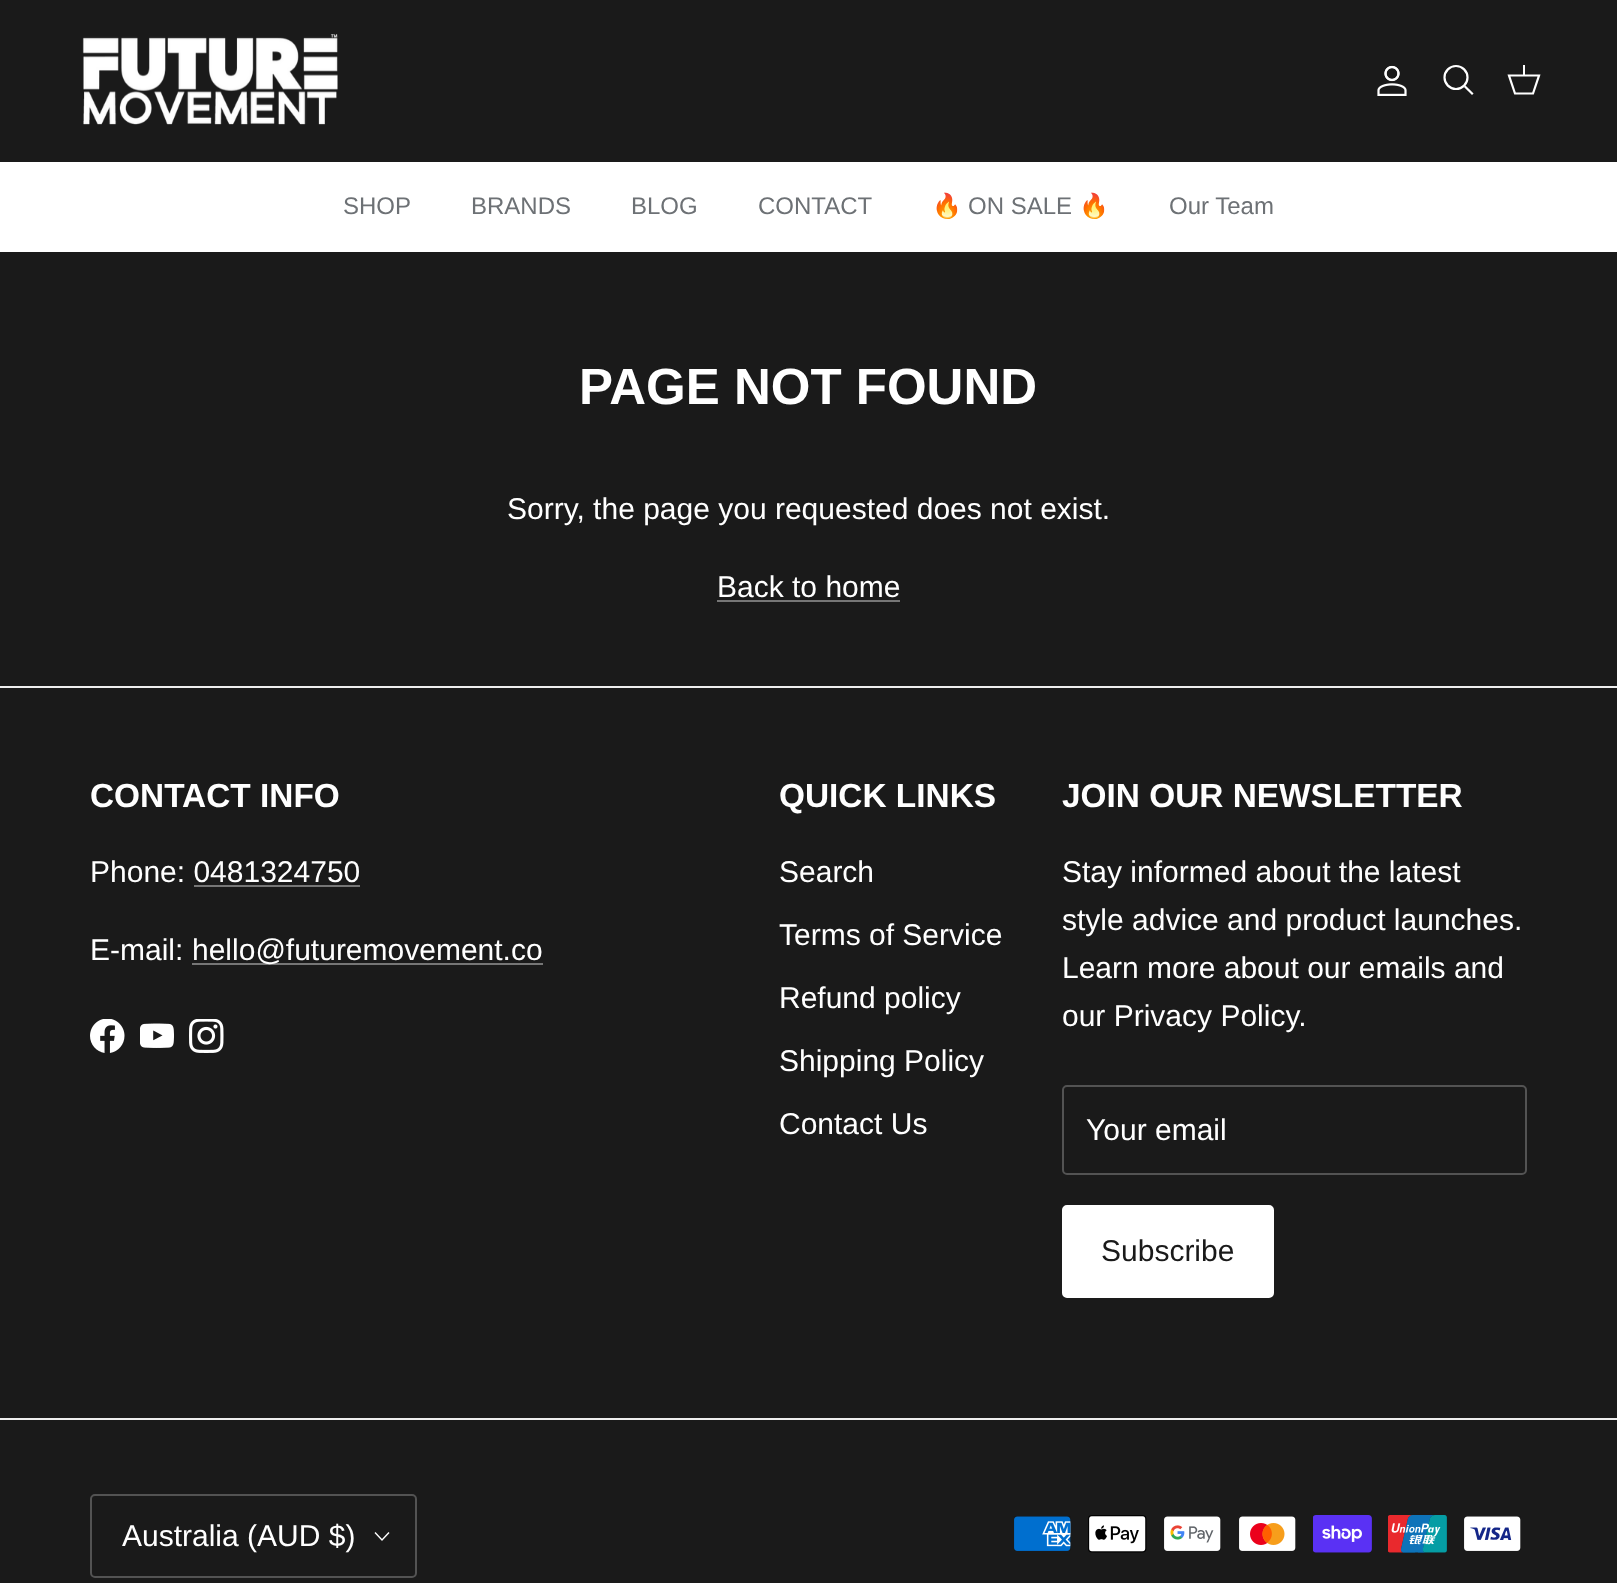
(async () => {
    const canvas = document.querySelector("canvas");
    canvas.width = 1617;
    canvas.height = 1583;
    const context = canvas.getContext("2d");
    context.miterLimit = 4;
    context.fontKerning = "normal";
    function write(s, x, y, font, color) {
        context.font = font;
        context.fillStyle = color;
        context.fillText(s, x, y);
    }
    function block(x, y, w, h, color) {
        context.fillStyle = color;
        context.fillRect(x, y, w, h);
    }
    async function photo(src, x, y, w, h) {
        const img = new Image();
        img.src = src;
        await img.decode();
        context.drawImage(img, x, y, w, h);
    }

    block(0, 0, 1617, 1583, "rgb(26, 26, 26)");
    await photo("media/1.png", 82, 34, 256, 91);
    await photo("media/2.png", 1377, 65, 30, 31);
    context.beginPath();
    context.arc(1456, 77.5, 11.5, 0, Math.PI * 2);
    context.strokeStyle = "rgb(255, 255, 255)";
    context.lineWidth = 2.2;
    context.stroke();
    context.beginPath();
    context.moveTo(1465.5, 87);
    context.lineTo(1472, 93.5);
    context.lineCap = "square";
    context.stroke();
    context.beginPath();
    context.moveTo(1509, 75.5);
    context.lineTo(1539, 75.5);
    context.lineTo(1533, 93.5);
    context.lineTo(1515, 93.5);
    context.closePath();
    context.lineCap = "butt";
    context.stroke();
    block(1523, 65, 2, 11, "rgb(255, 255, 255)");
    block(0, 162, 1617, 90, "rgb(255, 255, 255)");
    write("SHOP", 343, 214, "24px Liberation Sans", "rgb(109, 113, 117)");
    write("BRANDS", 471, 214, "24px Liberation Sans", "rgb(109, 113, 117)");
    write("BLOG", 631, 214, "24px Liberation Sans", "rgb(109, 113, 117)");
    write("CONTACT", 758, 214, "24px Liberation Sans", "rgb(109, 113, 117)");
    write("🔥", 932, 214, "24px Noto Color Emoji", "rgb(109, 113, 117)");
    write("ON SALE", 968, 214, "24px Liberation Sans", "rgb(109, 113, 117)");
    write("🔥", 1079, 214, "24px Noto Color Emoji", "rgb(109, 113, 117)");
    write("Our Team", 1169, 214, "24px Liberation Sans", "rgb(109, 113, 117)");
    write("PAGE NOT FOUND", 579, 404, "bold 51px Liberation Sans", "rgb(255, 255, 255)");
    write("Sorry, the page you requested does not exist.", 507, 519, "30px Liberation Sans", "rgb(255, 255, 255)");
    write("Back to home", 717, 597, "30px Liberation Sans", "rgb(255, 255, 255)");
    block(717, 600, 183, 2, "rgb(118, 118, 118)");
    block(0, 686, 1617, 2, "rgb(238, 238, 238)");
    write("CONTACT INFO", 90, 807, "bold 33.4px Liberation Sans", "rgb(255, 255, 255)");
    write("Phone: 0481324750", 90, 882, "30px Liberation Sans", "rgb(255, 255, 255)");
    block(194, 885, 166, 2, "rgb(118, 118, 118)");
    write("E-mail:", 90, 960, "30px Liberation Sans", "rgb(255, 255, 255)");
    block(192, 963, 351, 2, "rgb(118, 118, 118)");
    write("hello@futuremovement.co", 192, 960, "30px Liberation Sans", "rgb(255, 255, 255)");
    await photo("media/3.png", 90, 1019, 35, 34);
    await photo("media/4.png", 140, 1023, 34, 25);
    await photo("media/5.png", 189, 1019, 35, 34);
    write("QUICK LINKS", 779, 807, "bold 33.4px Liberation Sans", "rgb(255, 255, 255)");
    write("Search", 779, 882, "30px Liberation Sans", "rgb(255, 255, 255)");
    write("Terms of Service", 779, 945, "30px Liberation Sans", "rgb(255, 255, 255)");
    write("Refund policy", 779, 1008, "30px Liberation Sans", "rgb(255, 255, 255)");
    write("Shipping Policy", 779, 1071, "30px Liberation Sans", "rgb(255, 255, 255)");
    write("Contact Us", 779, 1134, "30px Liberation Sans", "rgb(255, 255, 255)");
    write("JOIN OUR NEWSLETTER", 1062, 807, "bold 33.4px Liberation Sans", "rgb(255, 255, 255)");
    write("Stay informed about the latest", 1062, 882, "30px Liberation Sans", "rgb(255, 255, 255)");
    write("style advice and product launches.", 1062, 930, "30px Liberation Sans", "rgb(255, 255, 255)");
    write("Learn more about our emails and", 1062, 978, "30px Liberation Sans", "rgb(255, 255, 255)");
    write("our Privacy Policy.", 1062, 1026, "30px Liberation Sans", "rgb(255, 255, 255)");
    context.beginPath();
    context.roundRect(1063, 1086, 463, 88, 4);
    context.strokeStyle = "rgb(83, 83, 83)";
    context.lineWidth = 2;
    context.stroke();
    write("Your email", 1086, 1140, "30px Liberation Sans", "rgb(255, 255, 255)");
    context.beginPath();
    context.roundRect(1063, 1206, 210, 91, 4);
    context.fill();
    context.strokeStyle = "rgb(255, 255, 255)";
    context.stroke();
    write("Subscribe", 1101, 1261, "30px Liberation Sans", "rgb(26, 26, 26)");
    block(0, 1418, 1617, 2, "rgb(238, 238, 238)");
    context.beginPath();
    context.roundRect(91, 1495, 325, 82, 4);
    context.strokeStyle = "rgb(83, 83, 83)";
    context.stroke();
    write("Australia (AUD $)", 122, 1546, "30px Liberation Sans", "rgb(255, 255, 255)");
    context.beginPath();
    context.moveTo(389, 1532.5);
    context.lineTo(382, 1540);
    context.lineTo(375, 1532.5);
    context.strokeStyle = "rgb(255, 255, 255)";
    context.lineWidth = 1.4;
    context.stroke();
    await photo("media/6.png", 1014, 1516, 57, 35);
    await photo("media/7.png", 1088, 1515, 59, 38);
    await photo("media/8.png", 1164, 1516, 57, 35);
    await photo("media/9.png", 1239, 1516, 57, 35);
    await photo("media/10.png", 1313, 1515, 59, 38);
    await photo("media/11.png", 1388, 1515, 59, 38);
    await photo("media/12.png", 1464, 1516, 57, 35);
})();
